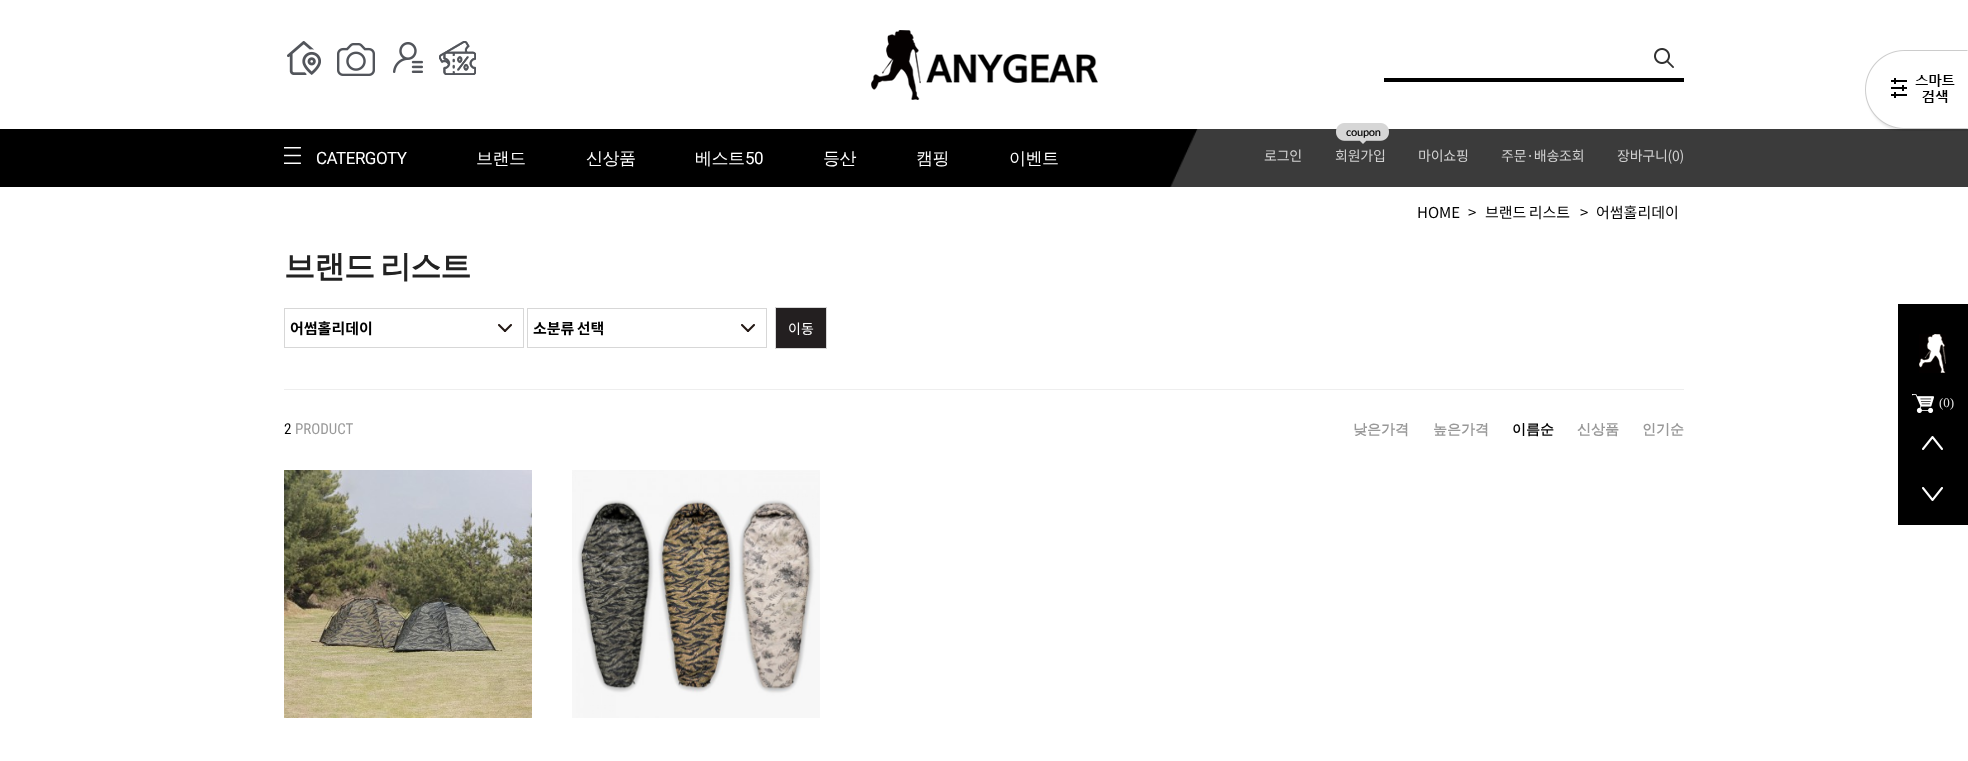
(async () => {
    const canvas = document.querySelector("canvas");
    canvas.width = 1968;
    canvas.height = 761;
    const context = canvas.getContext("2d");
    context.miterLimit = 4;
    context.fontKerning = "normal";
    function write(s, x, y, font, color) {
        context.font = font;
        context.fillStyle = color;
        context.fillText(s, x, y);
    }
    function block(x, y, w, h, color) {
        context.fillStyle = color;
        context.fillRect(x, y, w, h);
    }
    async function photo(src, x, y, w, h) {
        const img = new Image();
        img.src = src;
        await img.decode();
        context.drawImage(img, x, y, w, h);
    }

    block(0, 0, 1968, 761, "rgb(255, 255, 255)");
    block(1198, 129, 770, 58, "rgb(59, 59, 59)");
    await photo("media/1.png", 1865, 50, 103, 81);
    await photo("media/2.png", 287, 41, 34, 34);
    await photo("media/3.png", 337, 43, 38, 33);
    await photo("media/4.png", 393, 42, 30, 31);
    await photo("media/5.png", 439, 41, 37, 34);
    await photo("media/6.png", 871, 30, 227, 70);
    block(1384, 78, 300, 4, "rgb(0, 0, 0)");
    await photo("media/7.png", 1654, 48, 20, 20);
    await photo("media/8.png", 0, 129, 1198, 58);
    await photo("media/9.png", 284, 147, 17, 17);
    context.letterSpacing = "-0.5px";
    write("CATERGOTY", 316, 164, "17px Roboto", "rgb(255, 255, 255)");
    write("브랜드", 476, 164, "500 17px WenQuanYi Zen Hei", "rgb(255, 255, 255)");
    write("신상품", 586, 164, "500 17px WenQuanYi Zen Hei", "rgb(255, 255, 255)");
    write("베스트", 695, 164, "500 17px WenQuanYi Zen Hei", "rgb(255, 255, 255)");
    write("50", 745, 164, "17px Roboto", "rgb(255, 255, 255)");
    write("등산", 823, 164, "500 17px WenQuanYi Zen Hei", "rgb(255, 255, 255)");
    write("캠핑", 916, 164, "500 17px WenQuanYi Zen Hei", "rgb(255, 255, 255)");
    write("이벤트", 1009, 164, "500 17px WenQuanYi Zen Hei", "rgb(255, 255, 255)");
    context.letterSpacing = "-0.25px";
    write("로그인", 1264, 161, "14px Noto Sans KR", "rgb(209, 209, 209)");
    await photo("media/10.png", 1336, 123, 53, 21);
    write("coupon", 1346, 136, "600 11px Lato", "rgb(0, 0, 0)");
    write("회원가입", 1335, 161, "14px Noto Sans KR", "rgb(209, 209, 209)");
    write("마이쇼핑", 1418, 161, "14px Noto Sans KR", "rgb(209, 209, 209)");
    write("주문·배송조회", 1501, 161, "14px Noto Sans KR", "rgb(209, 209, 209)");
    write("장바구니(0)", 1617, 161, "14px Noto Sans KR", "rgb(209, 209, 209)");
    context.letterSpacing = "0px";
    write("HOME", 1417, 218, "15px Noto Sans KR", "rgb(0, 0, 0)");
    write(">", 1468, 218, "15px Noto Sans KR", "rgb(0, 0, 0)");
    context.wordSpacing = "-1px";
    write("브랜드 리스트", 1485, 218, "15px Noto Sans KR", "rgb(0, 0, 0)");
    context.wordSpacing = "0px";
    write(">", 1580, 218, "15px Noto Sans KR", "rgb(0, 0, 0)");
    write("어썸홀리데이", 1596, 218, "15px Noto Sans KR", "rgb(0, 0, 0)");
    context.letterSpacing = "-1px";
    context.wordSpacing = "-2px";
    write("브랜드 리스트", 284, 277, "bold 31px WenQuanYi Zen Hei", "rgb(34, 34, 34)");
    await photo("media/11.png", 498, 324, 14, 8);
    context.strokeStyle = "rgb(215, 215, 215)";
    context.strokeRect(284.5, 308.5, 239, 39);
    context.letterSpacing = "0px";
    context.wordSpacing = "0px";
    write("어썸홀리데이", 290, 334, "bold 15px Noto Sans KR", "rgb(0, 0, 0)");
    await photo("media/11.png", 741, 324, 14, 8);
    context.strokeRect(527.5, 308.5, 239, 39);
    context.wordSpacing = "-1px";
    write("소분류 선택", 533, 334, "bold 15px Noto Sans KR", "rgb(0, 0, 0)");
    context.fillStyle = "rgb(35, 31, 32)";
    context.beginPath();
    context.rect(775.5, 307.5, 51, 41);
    context.fill();
    context.stroke();
    context.wordSpacing = "0px";
    write("이동", 788, 334, "14px Noto Sans KR", "rgb(255, 255, 255)");
    block(284, 389, 1400, 1, "rgb(238, 238, 238)");
    write("2", 284, 434, "15px Roboto Condensed", "rgb(0, 0, 0)");
    write("PRODUCT", 295, 434, "15px Roboto Condensed", "rgb(153, 153, 153)");
    write("낮은가격", 1353, 434, "bold 14px WenQuanYi Zen Hei", "rgb(153, 153, 153)");
    write("높은가격", 1433, 434, "bold 14px WenQuanYi Zen Hei", "rgb(153, 153, 153)");
    write("이름순", 1512, 434, "bold 14px WenQuanYi Zen Hei", "rgb(0, 0, 0)");
    write("신상품", 1577, 434, "bold 14px WenQuanYi Zen Hei", "rgb(153, 153, 153)");
    write("인기순", 1642, 434, "bold 14px WenQuanYi Zen Hei", "rgb(153, 153, 153)");
    await photo("media/12.png", 284, 470, 248, 248);
    await photo("media/13.png", 572, 470, 248, 248);
    block(1898, 304, 70, 221, "rgb(0, 0, 0)");
    await photo("media/14.png", 1919, 334, 27, 39);
    await photo("media/15.png", 1912, 394, 22, 19);
    write("(0)", 1939, 407, "13px Liberation Serif", "rgb(227, 227, 227)");
    await photo("media/16.png", 1922, 436, 21, 14);
    await photo("media/17.png", 1922, 487, 21, 14);
})();
